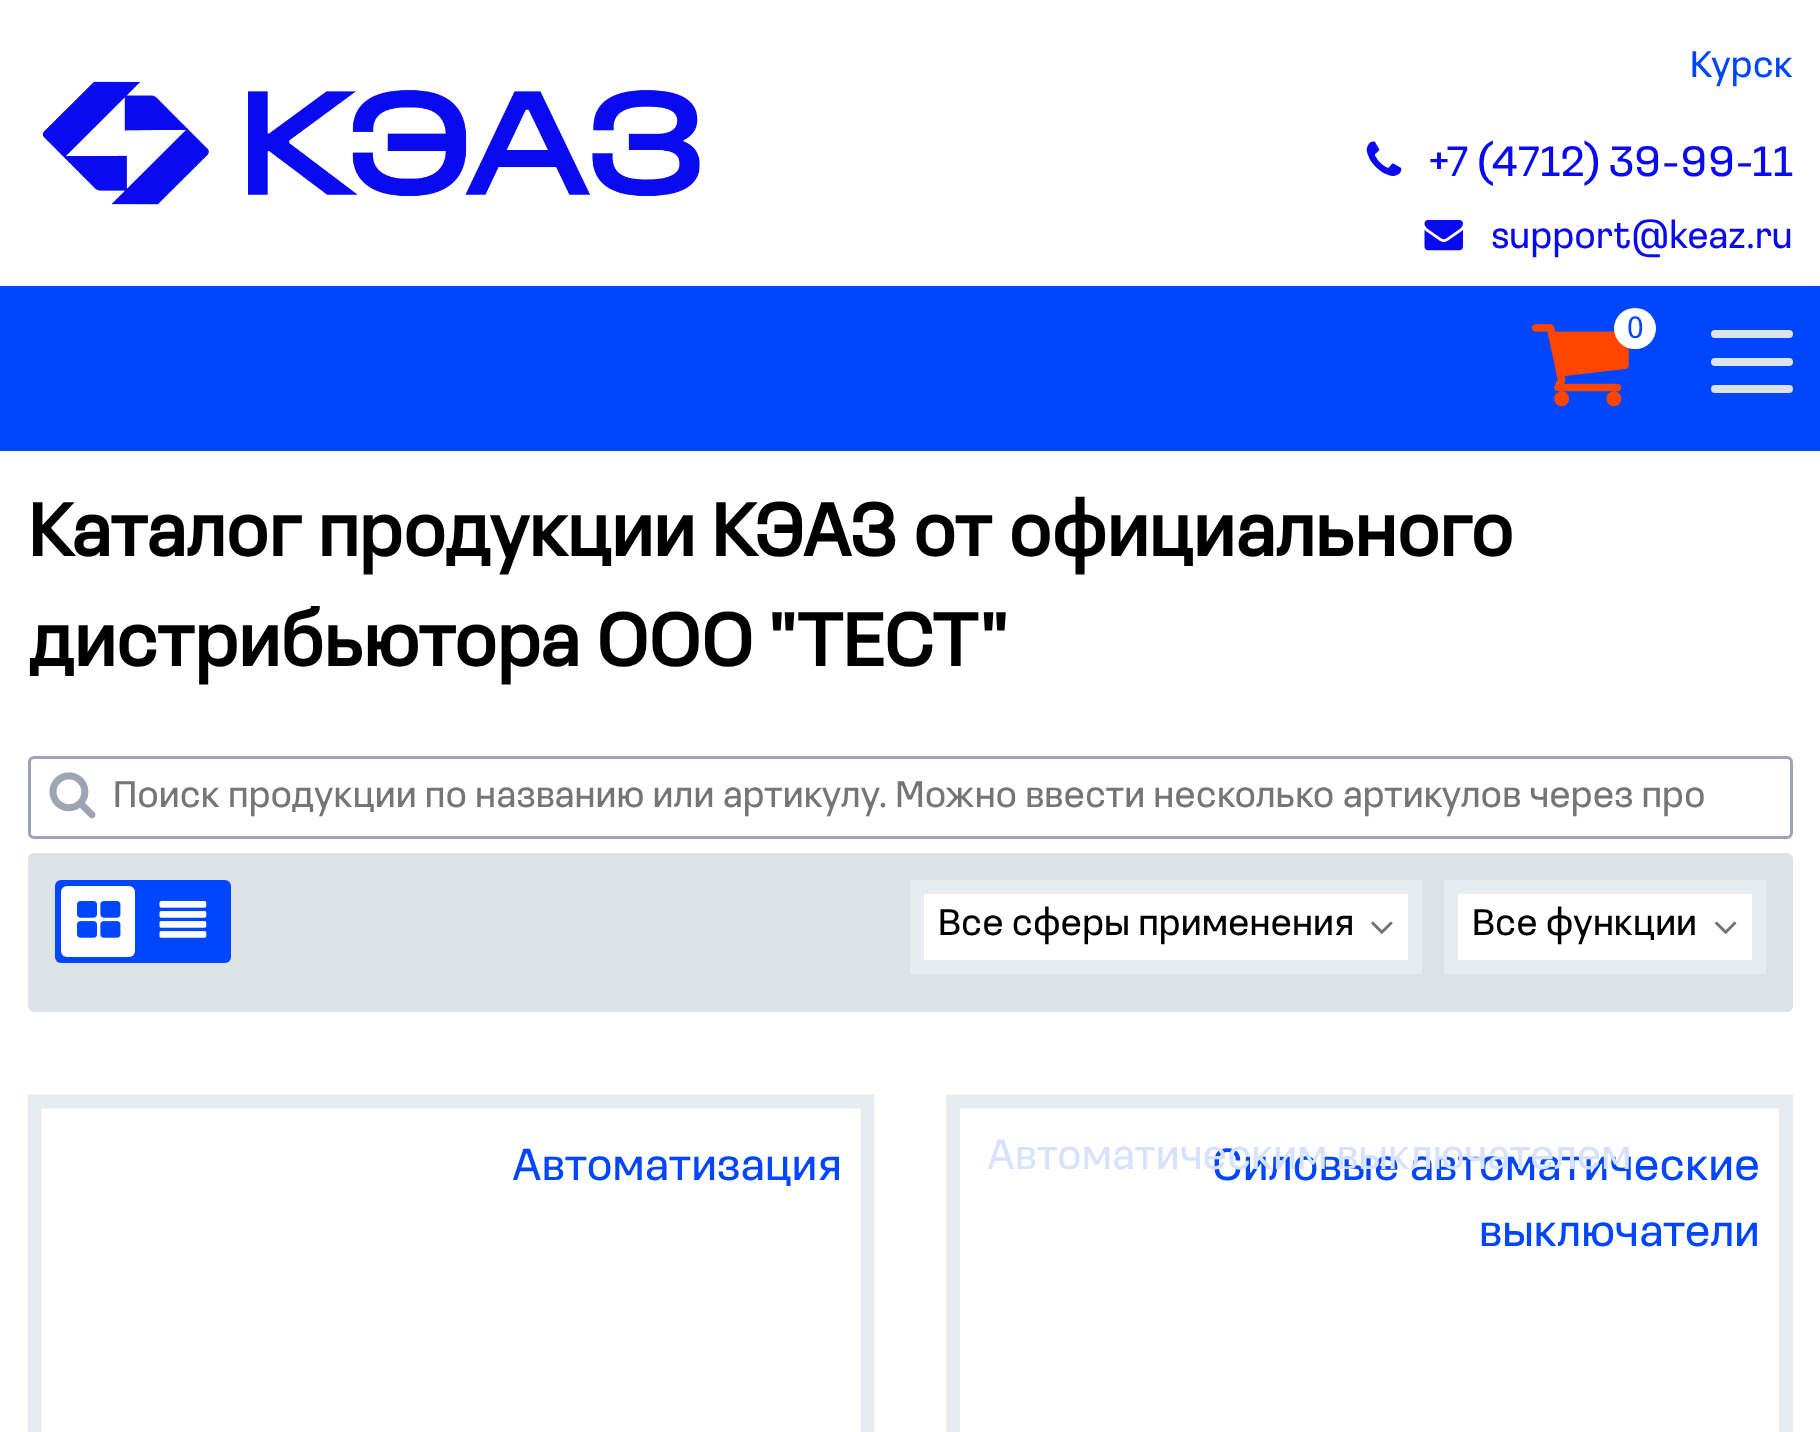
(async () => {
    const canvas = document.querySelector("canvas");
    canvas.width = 1820;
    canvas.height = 1432;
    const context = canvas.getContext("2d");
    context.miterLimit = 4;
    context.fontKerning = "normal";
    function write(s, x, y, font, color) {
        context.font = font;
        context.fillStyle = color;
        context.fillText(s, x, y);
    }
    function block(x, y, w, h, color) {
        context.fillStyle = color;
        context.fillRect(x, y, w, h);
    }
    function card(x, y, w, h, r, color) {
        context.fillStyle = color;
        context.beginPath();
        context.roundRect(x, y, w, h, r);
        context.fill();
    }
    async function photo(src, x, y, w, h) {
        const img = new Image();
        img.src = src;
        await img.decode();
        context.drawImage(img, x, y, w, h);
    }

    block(0, 0, 1820, 1432, "rgb(255, 255, 255)");
    await photo("media/1.png", 42, 81, 658, 124);
    write("Курск", 1690, 77, "38.5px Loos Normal", "rgb(0, 70, 255)");
    await photo("media/2.png", 1366, 141, 36, 35);
    write("+7 (4712) 39-99-11", 1428, 176, "44px Loos Normal", "rgb(10, 10, 240)");
    await photo("media/3.png", 1424, 220, 39, 31);
    write("support@keaz.ru", 1491, 248, "38.5px Loos Normal", "rgb(10, 10, 240)");
    block(0, 286, 1820, 165, "rgb(0, 70, 255)");
    card(1711, 330, 82, 8, 4, "rgb(219, 227, 233)");
    card(1711, 358, 82, 8, 4, "rgb(219, 227, 233)");
    card(1711, 385, 82, 8, 4, "rgb(219, 227, 233)");
    await photo("media/4.png", 1531, 324, 98, 83);
    card(1614, 308, 42, 41, 20.5, "rgb(255, 255, 255)");
    write("0", 1627, 338, "30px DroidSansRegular", "rgb(0, 70, 255)");
    write("Каталог продукции КЭАЗ от официального", 28, 556, "bold 77px Loos Normal", "rgb(0, 0, 0)");
    write("дистрибьютора ООО \"ТЕСТ\"", 28, 666, "bold 77px Loos Normal", "rgb(0, 0, 0)");
    context.beginPath();
    context.roundRect(29.5, 757.5, 1762, 80, 4.5);
    context.strokeStyle = "rgb(157, 164, 180)";
    context.lineWidth = 3;
    context.stroke();
    await photo("media/5.png", 49, 772, 47, 47);
    write("Поиск продукции по названию или артикулу. Можно ввести несколько артикулов через про", 113, 807, "38.5px Loos Normal", "rgb(117, 117, 117)");
    card(28, 853, 1765, 159, 6, "rgb(219, 227, 233)");
    card(55, 880, 176, 83, 6, "rgb(0, 70, 255)");
    card(61, 886, 74, 71, 6, "rgb(255, 255, 255)");
    await photo("media/6.png", 77, 901, 44, 37);
    await photo("media/7.png", 159, 901, 48, 37);
    context.beginPath();
    context.rect(917, 887, 498, 80);
    context.fill();
    context.strokeStyle = "rgb(231, 236, 240)";
    context.lineWidth = 14;
    context.stroke();
    write("Все сферы применения", 938, 935, "38.5px Loos Normal", "rgb(0, 0, 0)");
    await photo("media/8.png", 1371, 921, 22, 13);
    context.fillStyle = "rgb(255, 255, 255)";
    context.beginPath();
    context.rect(1451, 887, 308, 80);
    context.fill();
    context.stroke();
    write("Все функции", 1472, 935, "38.5px Loos Normal", "rgb(0, 0, 0)");
    await photo("media/9.png", 1715, 921, 22, 13);
    context.beginPath();
    context.moveTo(34.5, 1101.5);
    context.lineTo(867.5, 1101.5);
    context.lineTo(867.5, 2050);
    context.lineTo(34.5, 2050);
    context.closePath();
    context.lineWidth = 13.8;
    context.stroke();
    write("Автоматизация", 512, 1180, "46.75px Loos Normal", "rgb(0, 70, 255)");
    context.beginPath();
    context.moveTo(953, 1101.5);
    context.lineTo(1786, 1101.5);
    context.lineTo(1786, 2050);
    context.lineTo(953, 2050);
    context.closePath();
    context.stroke();
    write("Силовые автоматические", 1212, 1180, "46.75px Loos Normal", "rgb(0, 70, 255)");
    write("Автоматическим выключателем", 987, 1169, "44px Loos Normal", "rgb(215, 226, 255)");
    write("выключатели", 1479, 1246, "46.75px Loos Normal", "rgb(0, 70, 255)");
})();
